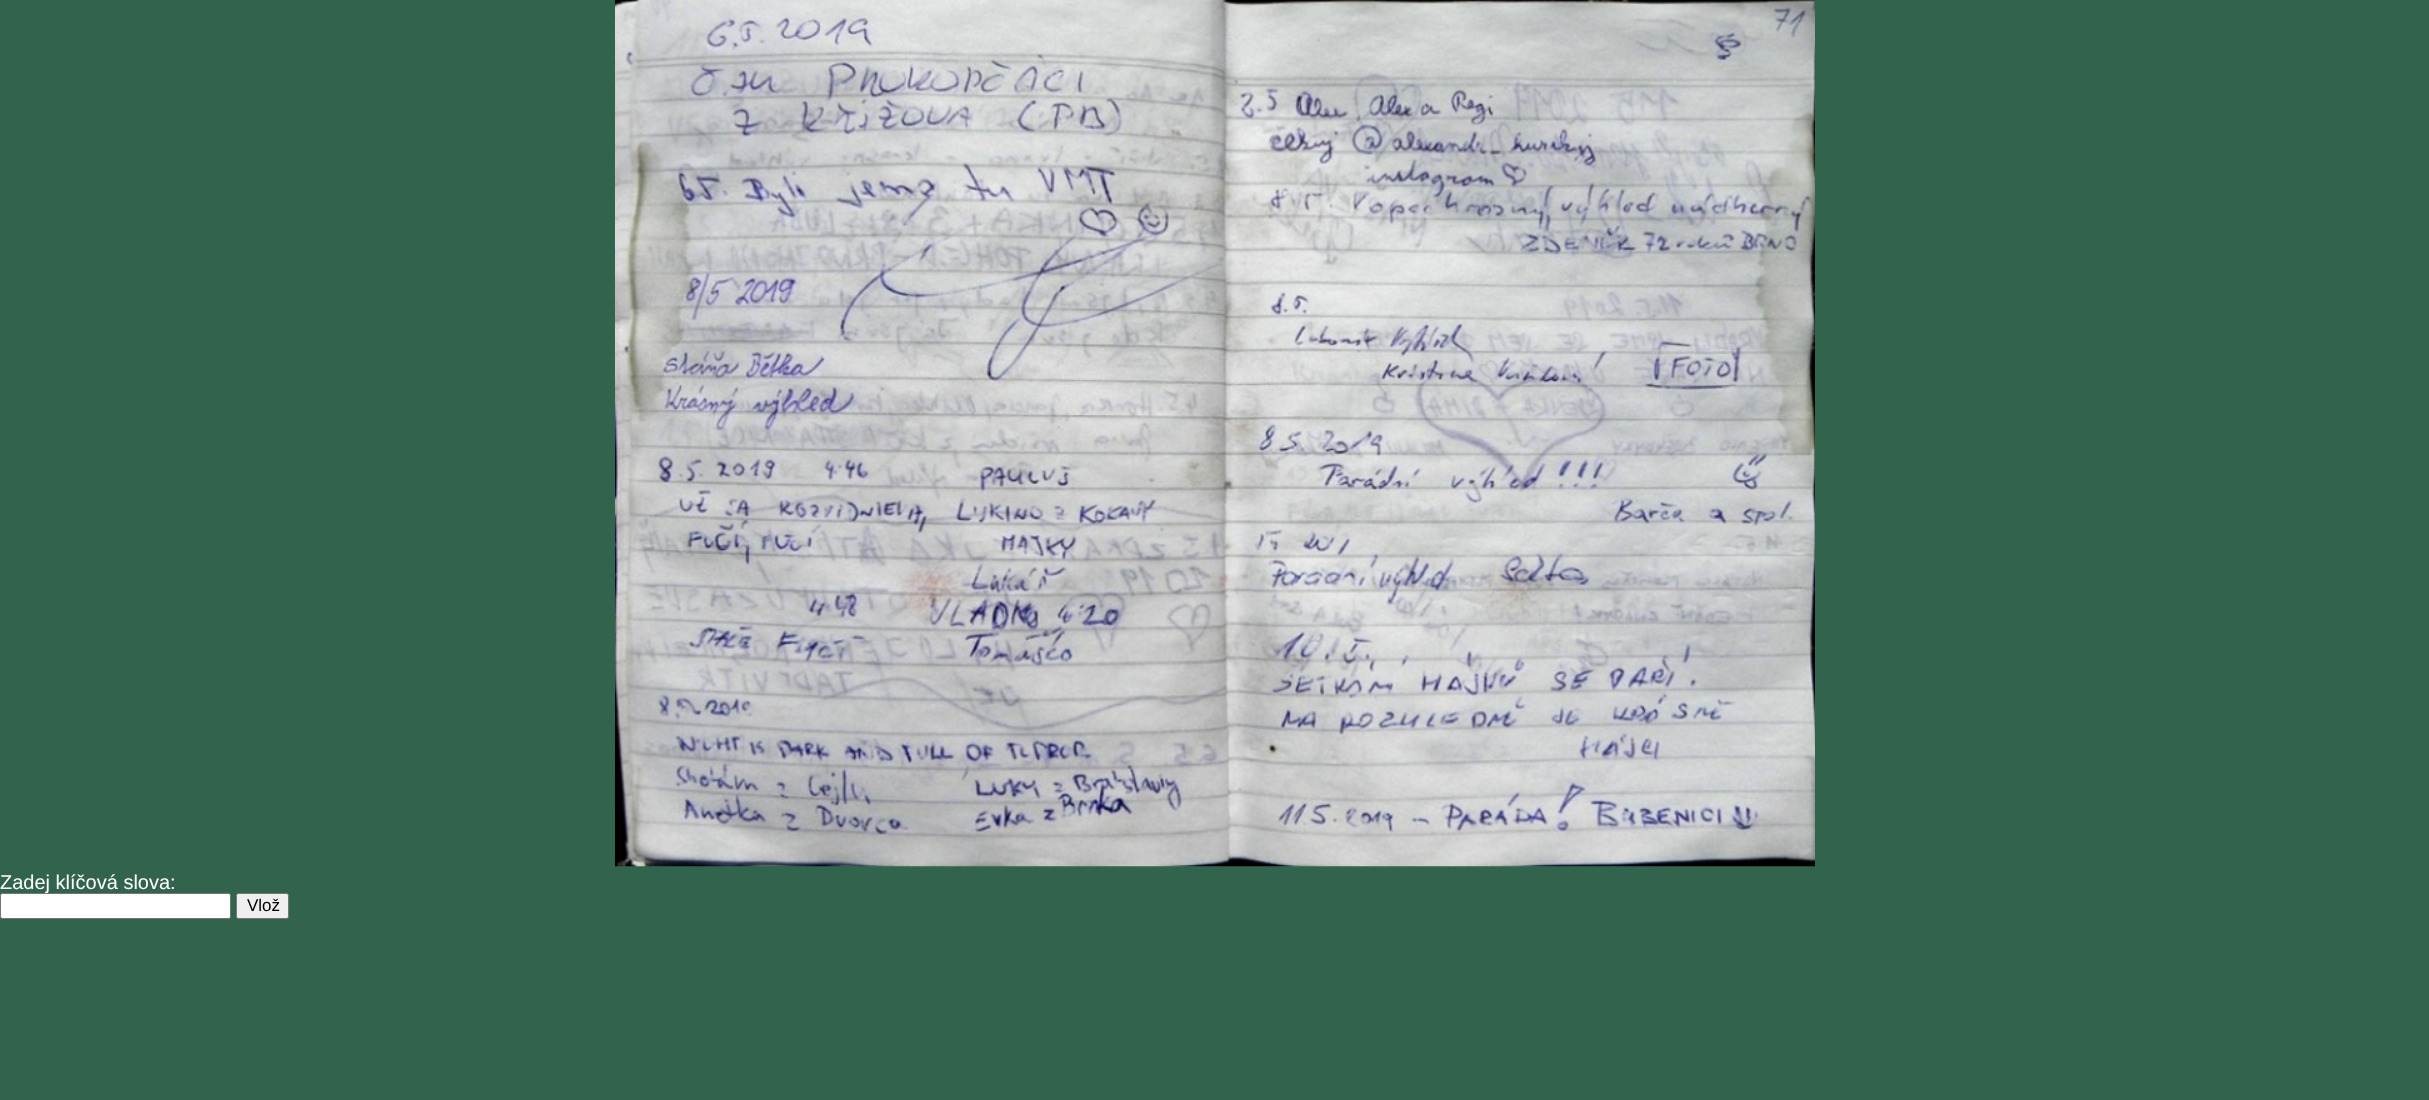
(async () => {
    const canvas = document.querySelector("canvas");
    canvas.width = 2429;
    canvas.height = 1100;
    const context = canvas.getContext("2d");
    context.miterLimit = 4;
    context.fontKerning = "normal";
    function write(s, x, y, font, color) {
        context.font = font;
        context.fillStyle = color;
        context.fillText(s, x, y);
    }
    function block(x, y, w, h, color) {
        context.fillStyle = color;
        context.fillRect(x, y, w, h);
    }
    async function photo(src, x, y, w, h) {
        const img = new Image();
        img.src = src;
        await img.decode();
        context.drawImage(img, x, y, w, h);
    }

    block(0, 0, 2429, 1100, "rgb(50, 100, 77)");
    await photo("media/1.png", 615, 0, 1200, 867);
    write("Zadej klíčová slova:", 0, 889, "20px Liberation Sans", "rgb(255, 255, 255)");
    context.beginPath();
    context.roundRect(0.5, 893.5, 230, 25, 2);
    context.fill();
    context.strokeStyle = "rgb(118, 118, 118)";
    context.stroke();
    context.fillStyle = "rgb(239, 239, 239)";
    context.beginPath();
    context.roundRect(236.5, 893.5, 52, 25, 2);
    context.fill();
    context.stroke();
    write("Vlož", 247, 911, "17px Liberation Sans", "rgb(0, 0, 0)");
})();
